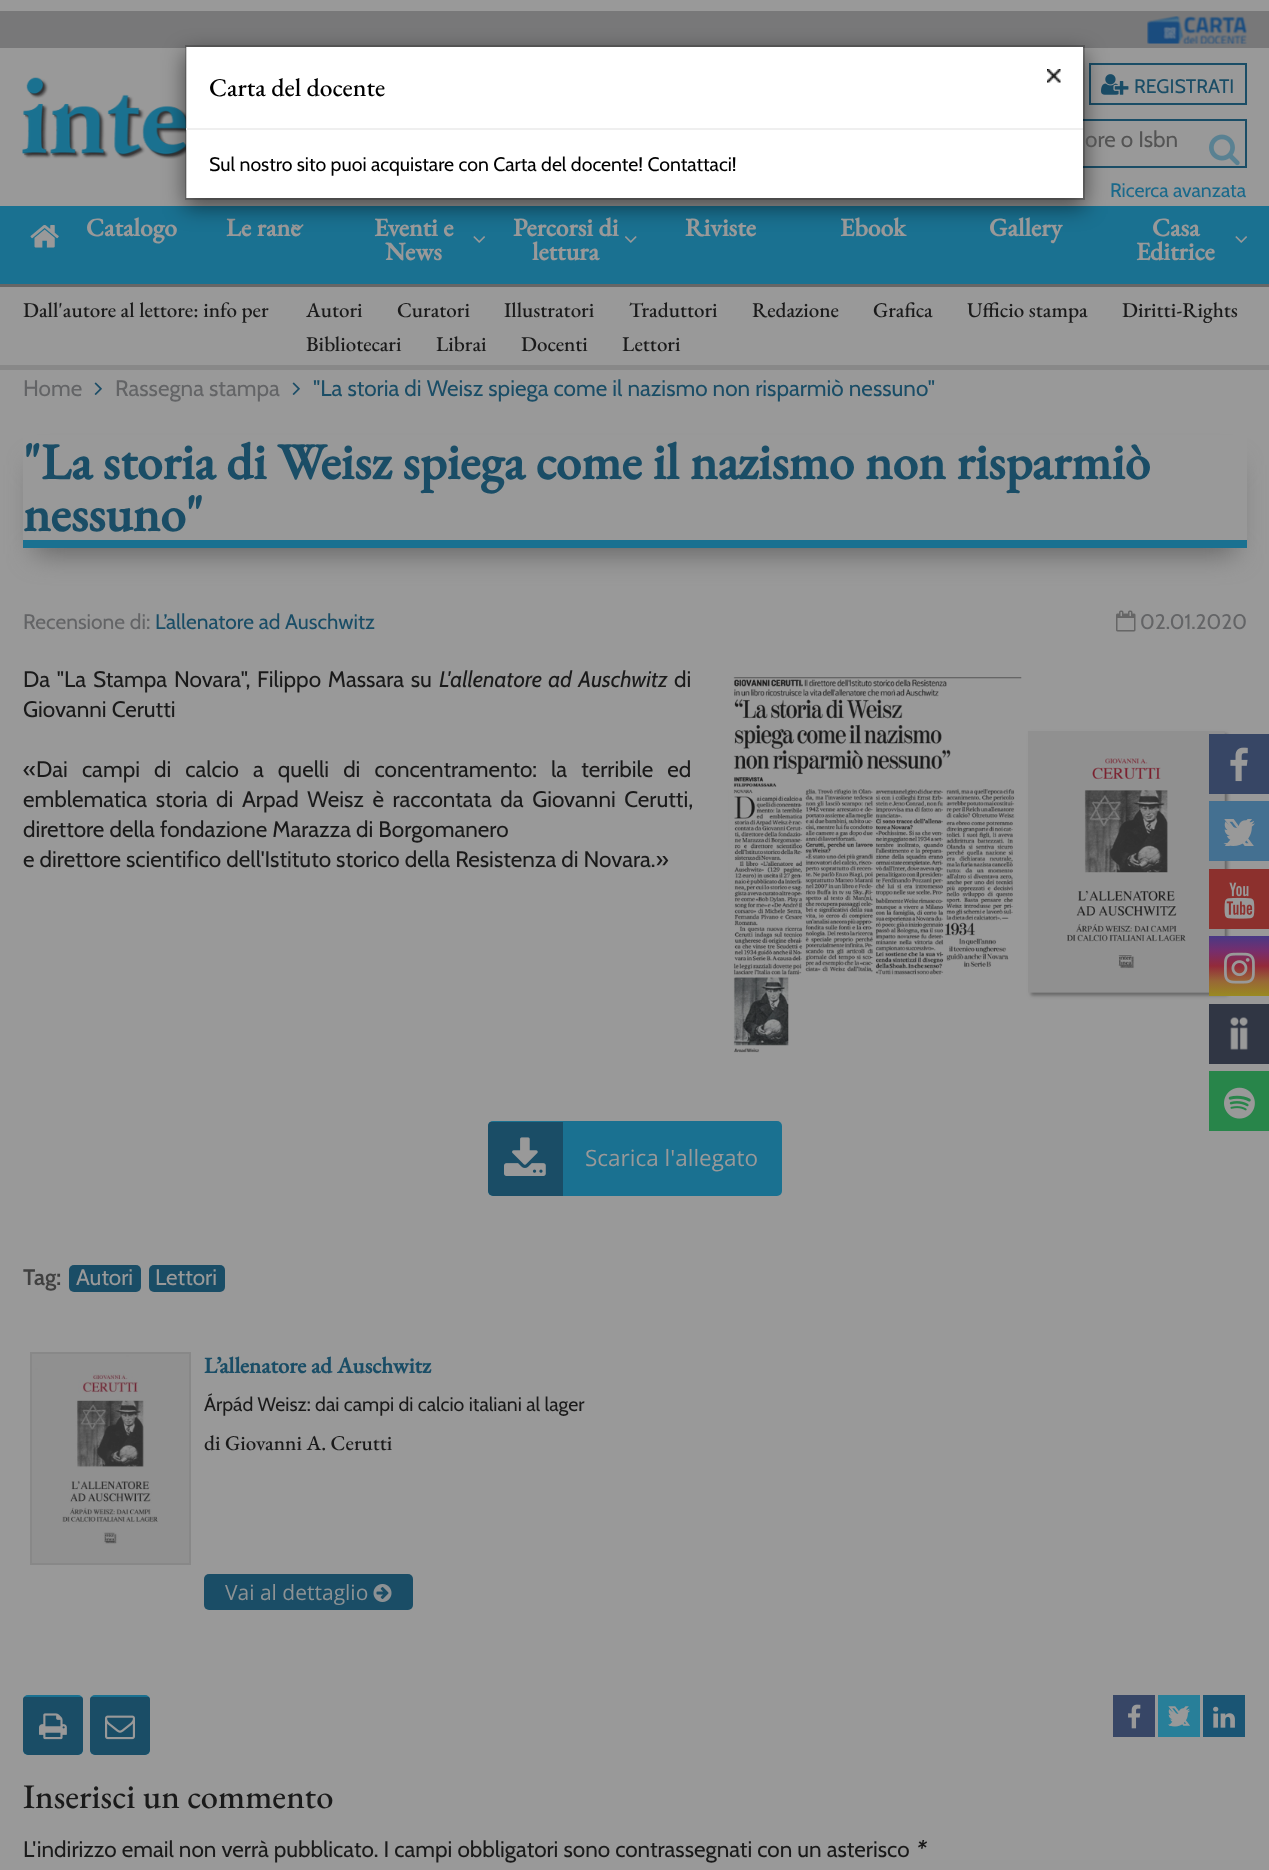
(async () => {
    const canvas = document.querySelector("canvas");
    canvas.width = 1269;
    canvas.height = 1870;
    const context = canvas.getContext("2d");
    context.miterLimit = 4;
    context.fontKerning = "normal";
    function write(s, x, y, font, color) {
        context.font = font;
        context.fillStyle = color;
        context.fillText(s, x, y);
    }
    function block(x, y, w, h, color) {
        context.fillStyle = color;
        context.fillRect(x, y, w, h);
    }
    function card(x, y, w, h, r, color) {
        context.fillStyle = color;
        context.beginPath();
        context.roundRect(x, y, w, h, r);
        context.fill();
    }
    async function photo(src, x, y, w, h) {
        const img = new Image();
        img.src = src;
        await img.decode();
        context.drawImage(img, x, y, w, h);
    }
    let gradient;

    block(0, 0, 1269, 1870, "rgb(153, 153, 153)");
    block(0, 11, 1269, 37, "rgb(120, 120, 121)");
    await photo("media/3.png", 22, 77, 164, 82);
    context.strokeStyle = "rgb(26, 77, 102)";
    context.lineWidth = 2;
    context.strokeRect(1090, 64, 156, 40);
    await photo("media/4.png", 1101, 74, 28, 21);
    context.strokeRect(918, 120, 328, 47);
    block(0, 206, 1269, 78, "rgb(26, 113, 145)");
    write("Le rane", 226, 236, "bold 25.5px EB Garamond", "rgb(153, 153, 153)");
    await photo("media/7.png", 292, 224, 12, 7);
    await photo("media/8.png", 473, 236, 12, 7);
    await photo("media/9.png", 625, 236, 12, 7);
    context.fillStyle = "rgba(0, 0, 0, 0.5)";
    context.filter = "blur(11px)";
    context.beginPath();
    context.rect(185, 53, 900, 154);
    context.fill();
    context.filter = "none";
    block(186, 47, 897, 151, "rgb(255, 255, 255)");
    context.strokeStyle = "rgba(0, 0, 0, 0.2)";
    context.strokeRect(186, 46, 898, 153);
    block(186, 128, 897, 2, "rgb(239, 239, 239)");
    await photo("media/1.png", 1047, 69, 14, 14);
    write("Carta del docente", 209, 96, "500 25.5px EB Garamond", "rgb(0, 0, 0)");
    write("Sul nostro sito puoi acquistare con Carta del docente! Contattaci!", 209, 171, "19.5px Cabin", "rgb(0, 0, 0)");
    block(0, 365, 1269, 5, "rgb(136, 136, 136)");
    await photo("media/2.png", 1147, 16, 100, 28);
    write("REGISTRATI", 1134, 93, "19.5px Cabin", "rgb(26, 77, 102)");
    write("ore o Isbn", 1085, 147, "22.5px Cabin", "rgb(84, 84, 84)");
    await photo("media/5.png", 1209, 134, 31, 32);
    write("Ricerca avanzata", 1110, 197, "19.5px Cabin", "rgb(26, 105, 139)");
    block(0, 284, 1269, 3, "rgb(102, 102, 102)");
    await photo("media/6.png", 30, 225, 29, 23);
    write("Catalogo", 86, 236, "bold 25.5px EB Garamond", "rgb(153, 153, 153)");
    write("Eventi e", 374, 236, "bold 25.5px EB Garamond", "rgb(153, 153, 153)");
    write("News", 385, 260, "bold 25.5px EB Garamond", "rgb(153, 153, 153)");
    write("Percorsi di", 513, 236, "bold 25.5px EB Garamond", "rgb(153, 153, 153)");
    write("lettura", 532, 260, "bold 25.5px EB Garamond", "rgb(153, 153, 153)");
    write("Riviste", 685, 236, "bold 25.5px EB Garamond", "rgb(153, 153, 153)");
    write("Ebook", 840, 236, "bold 25.5px EB Garamond", "rgb(153, 153, 153)");
    write("Gallery", 989, 236, "bold 25.5px EB Garamond", "rgb(153, 153, 153)");
    write("Casa", 1152, 236, "bold 25.5px EB Garamond", "rgb(153, 153, 153)");
    await photo("media/8.png", 1235, 236, 12, 7);
    write("Editrice", 1136, 260, "bold 25.5px EB Garamond", "rgb(153, 153, 153)");
    write("Dall'autore al lettore: info per", 23, 317, "500 21px EB Garamond", "rgb(26, 26, 26)");
    write("Autori", 306, 317, "500 21px EB Garamond", "rgb(26, 26, 26)");
    write("Curatori", 397, 317, "500 21px EB Garamond", "rgb(26, 26, 26)");
    write("Illustratori", 504, 317, "500 21px EB Garamond", "rgb(26, 26, 26)");
    write("Traduttori", 629, 317, "500 21px EB Garamond", "rgb(26, 26, 26)");
    write("Redazione", 752, 317, "500 21px EB Garamond", "rgb(26, 26, 26)");
    write("Grafica", 873, 317, "500 21px EB Garamond", "rgb(26, 26, 26)");
    write("Ufficio stampa", 967, 317, "500 21px EB Garamond", "rgb(26, 26, 26)");
    write("Diritti-Rights", 1122, 317, "500 21px EB Garamond", "rgb(26, 26, 26)");
    write("Bibliotecari", 306, 351, "500 21px EB Garamond", "rgb(26, 26, 26)");
    write("Librai", 436, 351, "500 21px EB Garamond", "rgb(26, 26, 26)");
    write("Docenti", 521, 351, "500 21px EB Garamond", "rgb(26, 26, 26)");
    write("Lettori", 622, 351, "500 21px EB Garamond", "rgb(26, 26, 26)");
    write("Home", 23, 396, "22.5px Cabin", "rgb(99, 100, 102)");
    await photo("media/10.png", 94, 382, 8, 13);
    write("Rassegna stampa", 115, 396, "22.5px Cabin", "rgb(99, 100, 102)");
    await photo("media/10.png", 292, 382, 8, 13);
    write("\"La storia di Weisz spiega come il nazismo non risparmiò nessuno\"", 313, 396, "22.5px Cabin", "rgb(26, 77, 102)");
    context.save();
    context.beginPath();
    context.moveTo(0, 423);
    context.lineTo(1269, 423);
    context.lineTo(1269, 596);
    context.lineTo(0, 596);
    context.closePath();
    context.moveTo(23, 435);
    context.lineTo(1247, 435);
    context.lineTo(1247, 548);
    context.lineTo(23, 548);
    context.closePath();
    context.clip("evenodd");
    context.fillStyle = "rgb(102, 102, 102)";
    context.filter = "blur(13.5px)";
    context.beginPath();
    context.rect(35, 465, 1200, 89);
    context.fill();
    context.filter = "none";
    context.restore();
    block(23, 540, 1224, 8, "rgb(26, 113, 145)");
    write("\"La storia di Weisz spiega come il nazismo non risparmiò", 23, 479, "bold 51px EB Garamond", "rgb(26, 77, 102)");
    write("nessuno\"", 23, 531, "bold 51px EB Garamond", "rgb(26, 77, 102)");
    write("Recensione di:", 23, 629, "21px Cabin", "rgb(99, 100, 102)");
    write("L’allenatore ad Auschwitz", 155, 629, "21px Cabin", "rgb(26, 77, 102)");
    await photo("media/11.png", 1116, 610, 20, 22);
    write("02.01.2020", 1140, 629, "21px Cabin", "rgb(99, 100, 102)");
    context.wordSpacing = "1.75px";
    write("Da \"La Stampa Novara\", Filippo Massara su", 23, 687, "22.5px Cabin", "rgb(26, 26, 26)");
    write("L'allenatore ad Auschwitz", 439, 687, "italic 22.5px Cabin", "rgb(26, 26, 26)");
    context.wordSpacing = "0px";
    write("di", 674, 687, "22.5px Cabin", "rgb(26, 26, 26)");
    await photo("media/12.png", 728, 677, 503, 376);
    write("Giovanni Cerutti", 23, 717, "22.5px Cabin", "rgb(26, 26, 26)");
    context.wordSpacing = "9px";
    write("«Dai campi di calcio a quelli di concentramento: la terribile ed", 23, 777, "22.5px Cabin", "rgb(26, 26, 26)");
    context.wordSpacing = "3.5px";
    write("emblematica storia di Arpad Weisz è raccontata da Giovanni Cerutti,", 23, 807, "22.5px Cabin", "rgb(26, 26, 26)");
    context.wordSpacing = "0px";
    write("direttore della fondazione Marazza di Borgomanero", 23, 837, "22.5px Cabin", "rgb(26, 26, 26)");
    write("e direttore scientifico dell'Istituto storico della Resistenza di Novara.»", 23, 867, "22.5px Cabin", "rgb(26, 26, 26)");
    card(488, 1121, 294, 75, 5, "rgb(26, 113, 145)");
    context.save();
    context.beginPath();
    context.roundRect(488, 1121, 294, 75, 5);
    context.clip();
    context.fillStyle = "rgb(26, 77, 102)";
    context.beginPath();
    context.roundRect(488, 1122, 75, 74, [0, 0, 0, 5]);
    context.fill();
    context.restore();
    await photo("media/13.png", 504, 1137, 42, 39);
    write("Scarica l'allegato", 585, 1166, "22.5px Open Sans", "rgb(153, 153, 153)");
    write("Tag:", 23, 1285, "600 22.5px Cabin", "rgb(64, 64, 64)");
    card(69, 1265, 72, 27, 5, "rgb(26, 77, 102)");
    write("Autori", 76, 1285, "22.5px Cabin", "rgb(153, 153, 153)");
    card(149, 1265, 76, 27, 5, "rgb(26, 77, 102)");
    write("Lettori", 155, 1285, "22.5px Cabin", "rgb(153, 153, 153)");
    await photo("media/14.png", 32, 1354, 157, 209);
    context.strokeStyle = "rgb(136, 136, 136)";
    context.strokeRect(31, 1353, 159, 211);
    write("L’allenatore ad Auschwitz", 204, 1373, "bold 22.5px EB Garamond", "rgb(26, 77, 102)");
    write("Árpád Weisz: dai campi di calcio italiani al lager", 204, 1411, "19.5px Cabin", "rgb(26, 26, 26)");
    write("di Giovanni A. Cerutti", 204, 1450, "500 21px EB Garamond", "rgb(26, 26, 26)");
    card(204, 1574, 209, 36, 5, "rgb(26, 77, 102)");
    write("Vai al dettaglio", 225, 1600, "21px Open Sans", "rgb(141, 146, 148)");
    await photo("media/15.png", 373, 1584, 19, 18);
    card(23, 1695, 60, 60, 5, "rgb(26, 113, 145)");
    context.save();
    context.beginPath();
    context.roundRect(23, 1695, 60, 60, 5);
    context.clip();
    context.fillStyle = "rgb(26, 77, 102)";
    context.beginPath();
    context.roundRect(23, 1697, 60, 58, [0, 0, 5, 5]);
    context.fill();
    context.restore();
    await photo("media/16.png", 39, 1713, 28, 27);
    card(90, 1695, 60, 60, 5, "rgb(26, 113, 145)");
    context.save();
    context.beginPath();
    context.roundRect(90, 1695, 60, 60, 5);
    context.clip();
    context.fillStyle = "rgb(26, 77, 102)";
    context.beginPath();
    context.roundRect(90, 1697, 60, 58, [0, 0, 5, 5]);
    context.fill();
    context.restore();
    await photo("media/17.png", 105, 1715, 30, 25);
    block(1113, 1695, 42, 42, "rgb(55, 70, 102)");
    await photo("media/18.png", 1128, 1704, 13, 25);
    block(1158, 1695, 42, 42, "rgb(40, 127, 153)");
    await photo("media/19.png", 1168, 1706, 22, 20);
    await photo("media/20.png", 1168, 1708, 22, 19);
    block(1203, 1695, 42, 42, "rgb(26, 85, 116)");
    await photo("media/21.png", 1213, 1706, 22, 22);
    write("Inserisci un commento", 23, 1808, "500 34.5px EB Garamond", "rgb(26, 26, 26)");
    write("L'indirizzo email non verrà pubblicato. I campi obbligatori sono contrassegnati con un asterisco", 23, 1857, "22.5px Cabin", "rgb(26, 26, 26)");
    write("*", 917, 1857, "italic bold 22.5px Cabin", "rgb(26, 26, 26)");
    block(1209, 734, 60, 60, "rgb(55, 70, 101)");
    await photo("media/22.png", 1230, 747, 18, 35);
    block(1209, 801, 60, 60, "rgb(68, 112, 145)");
    await photo("media/23.png", 1224, 819, 30, 27);
    await photo("media/24.png", 1223, 820, 32, 26);
    block(1209, 869, 60, 60, "rgb(140, 48, 45)");
    await photo("media/25.png", 1224, 882, 31, 37);
    gradient = context.createLinearGradient(1239, 936, 1239, 996);
    gradient.addColorStop(0, "rgb(72, 57, 133)");
    gradient.addColorStop(0.25, "rgb(118, 46, 109)");
    gradient.addColorStop(0.5, "rgb(147, 42, 58)");
    gradient.addColorStop(0.75, "rgb(152, 103, 54)");
    gradient.addColorStop(1, "rgb(153, 138, 33)");
    context.fillStyle = gradient;
    context.fillRect(1209, 936, 60, 60);
    await photo("media/26.png", 1224, 952, 31, 32);
    block(1209, 1004, 60, 60, "rgb(48, 54, 68)");
    await photo("media/27.png", 1230, 1017, 18, 33);
    block(1209, 1071, 60, 60, "rgb(40, 133, 74)");
    await photo("media/28.png", 1224, 1087, 31, 32);
})();
